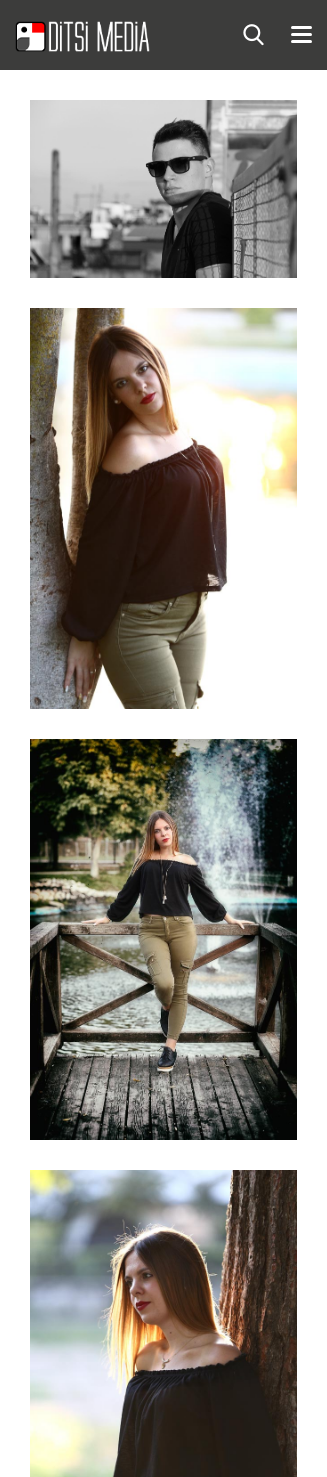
(async () => {
    const canvas = document.querySelector("canvas");
    canvas.width = 327;
    canvas.height = 1477;
    const context = canvas.getContext("2d");
    context.miterLimit = 4;
    context.fontKerning = "normal";
    function block(x, y, w, h, color) {
        context.fillStyle = color;
        context.fillRect(x, y, w, h);
    }
    function card(x, y, w, h, r, color) {
        context.fillStyle = color;
        context.beginPath();
        context.roundRect(x, y, w, h, r);
        context.fill();
    }
    async function photo(src, x, y, w, h) {
        const img = new Image();
        img.src = src;
        await img.decode();
        context.drawImage(img, x, y, w, h);
    }

    block(0, 0, 327, 1477, "rgb(255, 255, 255)");
    block(0, 0, 327, 70, "rgb(60, 60, 59)");
    await photo("media/1.png", 15, 21, 135, 31);
    await photo("media/2.png", 243, 24, 21, 22);
    card(291, 33, 21, 3, 1.5, "rgb(255, 255, 255)");
    card(291, 26, 21, 3, 1.5, "rgb(255, 255, 255)");
    card(291, 40, 21, 3, 1.5, "rgb(255, 255, 255)");
    await photo("media/3.png", 30, 100, 267, 178);
    await photo("media/4.png", 30, 308, 267, 401);
    await photo("media/5.png", 30, 739, 267, 401);
    await photo("media/6.png", 30, 1170, 267, 307);
})();
